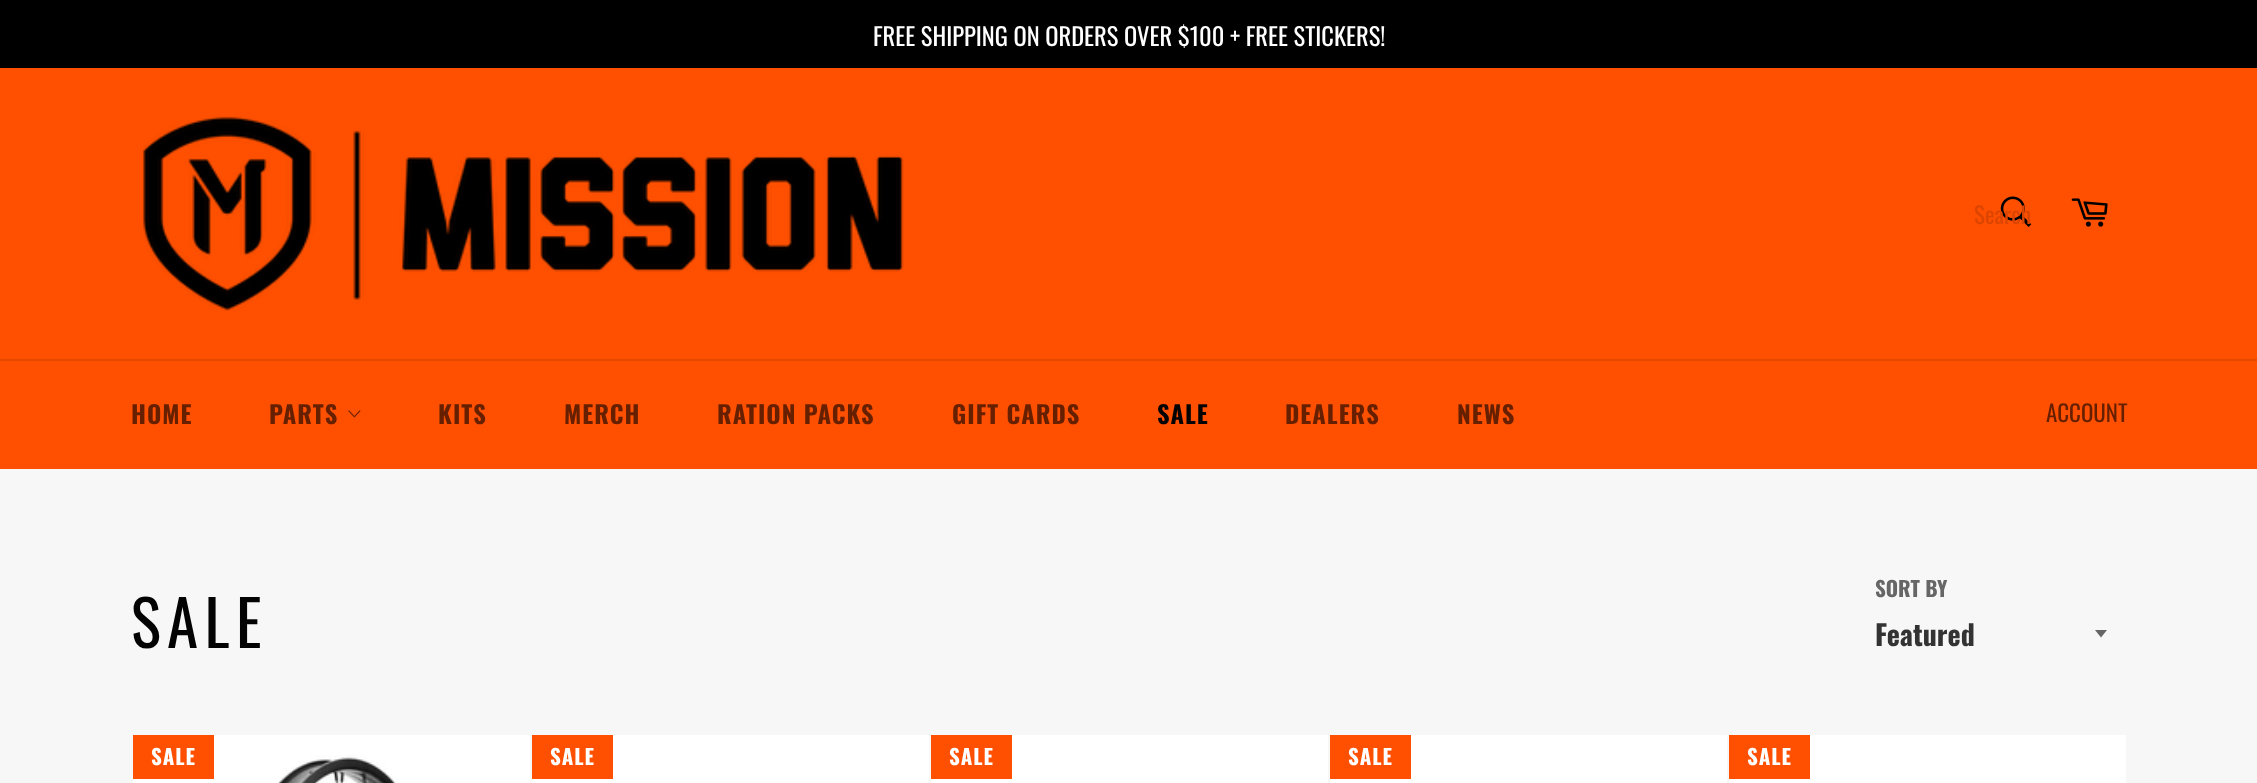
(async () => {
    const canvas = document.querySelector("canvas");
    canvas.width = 2257;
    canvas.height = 783;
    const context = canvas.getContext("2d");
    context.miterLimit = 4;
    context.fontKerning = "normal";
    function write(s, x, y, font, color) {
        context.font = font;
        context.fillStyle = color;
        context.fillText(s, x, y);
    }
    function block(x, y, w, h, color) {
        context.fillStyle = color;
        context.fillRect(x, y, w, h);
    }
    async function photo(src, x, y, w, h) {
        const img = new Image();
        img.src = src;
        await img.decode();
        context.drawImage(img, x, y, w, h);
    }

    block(0, 0, 2257, 783, "rgb(247, 247, 247)");
    block(0, 0, 2257, 68, "rgb(0, 0, 0)");
    write("FREE SHIPPING ON ORDERS OVER $100 + FREE STICKERS!", 873, 46, "24.5px Oswald", "rgb(255, 255, 255)");
    block(0, 68, 2257, 401, "rgb(254, 80, 0)");
    await photo("media/1.png", 143, 116, 761, 195);
    await photo("media/2.png", 2000, 196, 32, 31);
    write("Search", 1974, 224, "23px Oswald", "rgb(220, 69, 0)");
    await photo("media/3.png", 2071, 198, 37, 29);
    block(0, 359, 2257, 2, "rgb(229, 72, 0)");
    context.letterSpacing = "1px";
    write("HOME", 131, 424, "bold 24.5px Oswald", "rgb(102, 32, 0)");
    write("PARTS", 269, 424, "bold 24.5px Oswald", "rgb(102, 32, 0)");
    await photo("media/4.png", 348, 410, 13, 8);
    write("KITS", 438, 424, "bold 24.5px Oswald", "rgb(102, 32, 0)");
    write("MERCH", 564, 424, "bold 24.5px Oswald", "rgb(102, 32, 0)");
    write("RATION PACKS", 717, 424, "bold 24.5px Oswald", "rgb(102, 32, 0)");
    write("GIFT CARDS", 952, 424, "bold 24.5px Oswald", "rgb(102, 32, 0)");
    write("SALE", 1157, 424, "bold 24.5px Oswald", "rgb(3, 3, 3)");
    write("DEALERS", 1285, 424, "bold 24.5px Oswald", "rgb(102, 32, 0)");
    write("NEWS", 1457, 424, "bold 24.5px Oswald", "rgb(102, 32, 0)");
    context.letterSpacing = "0px";
    write("ACCOUNT", 2046, 422, "23px Oswald", "rgb(102, 32, 0)");
    context.letterSpacing = "6.5px";
    write("SALE", 131, 648, "63px Oswald", "rgb(3, 3, 3)");
    context.letterSpacing = "0px";
    write("SORT BY", 1875, 597, "bold 21px Oswald", "rgb(102, 102, 102)");
    context.beginPath();
    context.moveTo(2095, 630);
    context.lineTo(2101, 637.5);
    context.lineTo(2107, 630);
    context.closePath();
    context.fill();
    write("Featured", 1875, 646, "bold 28px Oswald", "rgb(51, 51, 51)");
    block(133, 735, 397, 48, "rgb(255, 255, 255)");
    block(133, 735, 81, 44, "rgb(254, 80, 0)");
    context.letterSpacing = "1px";
    write("SALE", 151, 765, "bold 21px Oswald", "rgb(255, 255, 255)");
    await photo("media/5.png", 278, 755, 120, 28);
    block(532, 735, 397, 48, "rgb(255, 255, 255)");
    block(532, 735, 81, 44, "rgb(254, 80, 0)");
    write("SALE", 550, 765, "bold 21px Oswald", "rgb(255, 255, 255)");
    block(931, 735, 397, 48, "rgb(255, 255, 255)");
    block(931, 735, 81, 44, "rgb(254, 80, 0)");
    write("SALE", 949, 765, "bold 21px Oswald", "rgb(255, 255, 255)");
    block(1330, 735, 397, 48, "rgb(255, 255, 255)");
    block(1330, 735, 81, 44, "rgb(254, 80, 0)");
    write("SALE", 1348, 765, "bold 21px Oswald", "rgb(255, 255, 255)");
    block(1729, 735, 397, 48, "rgb(255, 255, 255)");
    block(1729, 735, 81, 44, "rgb(254, 80, 0)");
    write("SALE", 1747, 765, "bold 21px Oswald", "rgb(255, 255, 255)");
})();
